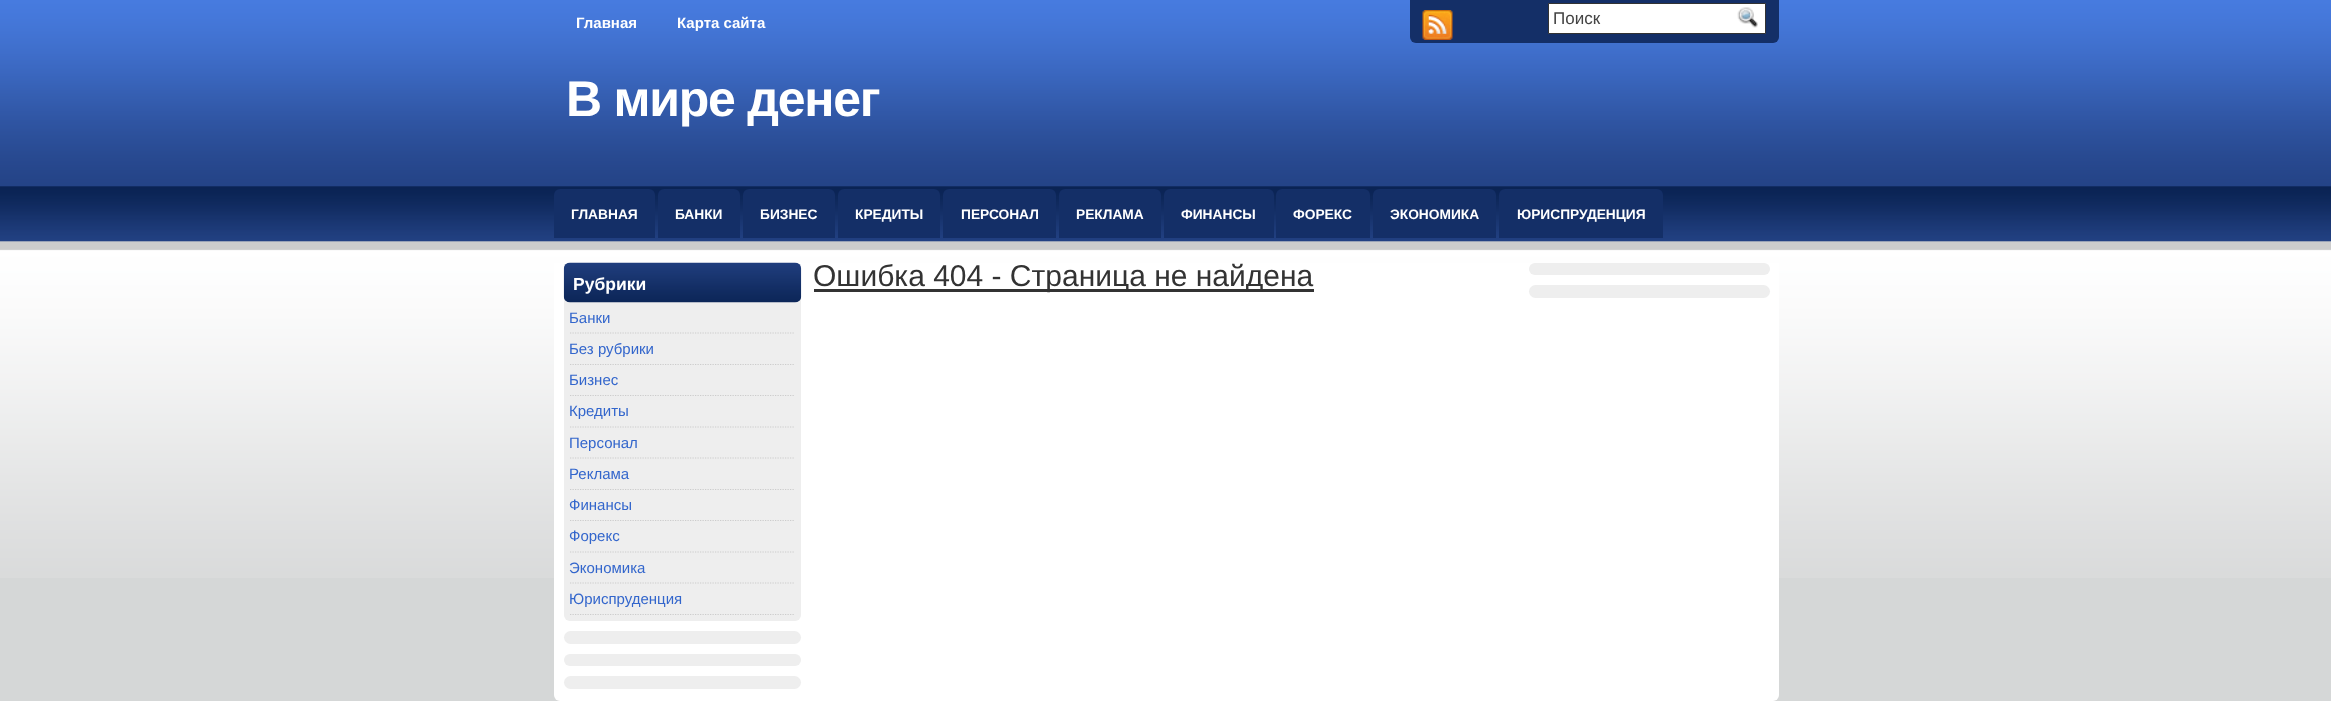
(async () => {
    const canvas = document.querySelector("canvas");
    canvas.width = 2331;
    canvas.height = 701;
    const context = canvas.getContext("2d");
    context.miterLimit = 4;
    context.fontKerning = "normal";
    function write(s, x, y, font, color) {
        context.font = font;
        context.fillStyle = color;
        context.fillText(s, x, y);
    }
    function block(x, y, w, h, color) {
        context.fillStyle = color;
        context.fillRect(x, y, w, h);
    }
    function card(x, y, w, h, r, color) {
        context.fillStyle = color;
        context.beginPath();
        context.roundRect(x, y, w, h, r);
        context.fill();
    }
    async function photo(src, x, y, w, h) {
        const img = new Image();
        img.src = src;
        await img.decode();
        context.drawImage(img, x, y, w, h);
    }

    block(0, 0, 2331, 701, "rgb(213, 215, 215)");
    await photo("media/1.png", 0, 0, 2331, 578);
    write("Главная", 576, 28, "bold 15px Liberation Sans", "rgb(255, 255, 255)");
    write("Карта сайта", 677, 28, "bold 15px Liberation Sans", "rgb(255, 255, 255)");
    context.fillStyle = "rgb(20, 47, 103)";
    context.beginPath();
    context.roundRect(1410, 0, 369, 43, [0, 0, 6, 6]);
    context.fill();
    await photo("media/2.png", 1422, 10, 31, 30);
    context.fillStyle = "rgb(255, 255, 255)";
    context.beginPath();
    context.rect(1548.5, 3.5, 217, 30);
    context.fill();
    context.strokeStyle = "rgb(51, 51, 51)";
    context.stroke();
    write("Поиск", 1553, 24, "17px Liberation Sans", "rgb(68, 68, 68)");
    await photo("media/3.png", 1737, 7, 21, 21);
    context.letterSpacing = "-1.25px";
    write("В мире денег", 566, 116, "bold 50px Liberation Sans", "rgb(255, 255, 255)");
    context.fillStyle = "rgb(20, 47, 103)";
    context.beginPath();
    context.roundRect(554, 189, 101, 49, [6, 6, 0, 0]);
    context.fill();
    context.letterSpacing = "0px";
    write("ГЛАВНАЯ", 571, 219, "bold 13.75px Liberation Sans", "rgb(255, 255, 255)");
    context.fillStyle = "rgb(20, 47, 103)";
    context.beginPath();
    context.roundRect(658, 189, 82, 49, [6, 6, 0, 0]);
    context.fill();
    write("БАНКИ", 675, 219, "bold 13.75px Liberation Sans", "rgb(255, 255, 255)");
    context.fillStyle = "rgb(20, 47, 103)";
    context.beginPath();
    context.roundRect(743, 189, 92, 49, [6, 6, 0, 0]);
    context.fill();
    write("БИЗНЕС", 760, 219, "bold 13.75px Liberation Sans", "rgb(255, 255, 255)");
    context.fillStyle = "rgb(20, 47, 103)";
    context.beginPath();
    context.roundRect(838, 189, 102, 49, [6, 6, 0, 0]);
    context.fill();
    write("КРЕДИТЫ", 855, 219, "bold 13.75px Liberation Sans", "rgb(255, 255, 255)");
    context.fillStyle = "rgb(20, 47, 103)";
    context.beginPath();
    context.roundRect(943, 189, 113, 49, [6, 6, 0, 0]);
    context.fill();
    write("ПЕРСОНАЛ", 961, 219, "bold 13.75px Liberation Sans", "rgb(255, 255, 255)");
    context.fillStyle = "rgb(20, 47, 103)";
    context.beginPath();
    context.roundRect(1059, 189, 102, 49, [6, 6, 0, 0]);
    context.fill();
    write("РЕКЛАМА", 1076, 219, "bold 13.75px Liberation Sans", "rgb(255, 255, 255)");
    context.fillStyle = "rgb(20, 47, 103)";
    context.beginPath();
    context.roundRect(1164, 189, 110, 49, [6, 6, 0, 0]);
    context.fill();
    write("ФИНАНСЫ", 1181, 219, "bold 13.75px Liberation Sans", "rgb(255, 255, 255)");
    context.fillStyle = "rgb(20, 47, 103)";
    context.beginPath();
    context.roundRect(1276, 189, 94, 49, [6, 6, 0, 0]);
    context.fill();
    write("ФОРЕКС", 1293, 219, "bold 13.75px Liberation Sans", "rgb(255, 255, 255)");
    context.fillStyle = "rgb(20, 47, 103)";
    context.beginPath();
    context.roundRect(1373, 189, 123, 49, [6, 6, 0, 0]);
    context.fill();
    write("ЭКОНОМИКА", 1390, 219, "bold 13.75px Liberation Sans", "rgb(255, 255, 255)");
    context.fillStyle = "rgb(20, 47, 103)";
    context.beginPath();
    context.roundRect(1499, 189, 164, 49, [6, 6, 0, 0]);
    context.fill();
    write("ЮРИСПРУДЕНЦИЯ", 1517, 219, "bold 13.75px Liberation Sans", "rgb(255, 255, 255)");
    context.beginPath();
    context.roundRect(554, 263, 1225, 438, [0, 0, 6, 6]);
    context.fill();
    card(564, 263, 237, 358, 6, "rgb(238, 238, 238)");
    await photo("media/4.png", 563, 262, 239, 41);
    write("Рубрики", 573, 290, "bold 17.5px Liberation Sans", "rgb(255, 255, 255)");
    context.beginPath();
    context.moveTo(570, 333);
    context.lineTo(795, 333);
    context.strokeStyle = "rgb(204, 204, 204)";
    context.lineWidth = 1.2;
    context.setLineDash([1.25, 1.25]);
    context.stroke();
    write("Банки", 569, 323, "15px Liberation Sans", "rgb(51, 102, 204)");
    context.beginPath();
    context.moveTo(570, 364.5);
    context.lineTo(795, 364.5);
    context.stroke();
    write("Без рубрики", 569, 354, "15px Liberation Sans", "rgb(51, 102, 204)");
    context.beginPath();
    context.moveTo(570, 395.5);
    context.lineTo(795, 395.5);
    context.stroke();
    write("Бизнес", 569, 385, "15px Liberation Sans", "rgb(51, 102, 204)");
    context.beginPath();
    context.moveTo(570, 427);
    context.lineTo(795, 427);
    context.stroke();
    write("Кредиты", 569, 416, "15px Liberation Sans", "rgb(51, 102, 204)");
    context.beginPath();
    context.moveTo(570, 458);
    context.lineTo(795, 458);
    context.stroke();
    write("Персонал", 569, 448, "15px Liberation Sans", "rgb(51, 102, 204)");
    context.beginPath();
    context.moveTo(570, 489.5);
    context.lineTo(795, 489.5);
    context.stroke();
    write("Реклама", 569, 479, "15px Liberation Sans", "rgb(51, 102, 204)");
    context.beginPath();
    context.moveTo(570, 520.5);
    context.lineTo(795, 520.5);
    context.stroke();
    write("Финансы", 569, 510, "15px Liberation Sans", "rgb(51, 102, 204)");
    context.beginPath();
    context.moveTo(570, 552);
    context.lineTo(795, 552);
    context.stroke();
    write("Форекс", 569, 541, "15px Liberation Sans", "rgb(51, 102, 204)");
    context.beginPath();
    context.moveTo(570, 583);
    context.lineTo(795, 583);
    context.stroke();
    write("Экономика", 569, 573, "15px Liberation Sans", "rgb(51, 102, 204)");
    context.beginPath();
    context.moveTo(570, 614.5);
    context.lineTo(795, 614.5);
    context.stroke();
    write("Юриспруденция", 569, 604, "15px Liberation Sans", "rgb(51, 102, 204)");
    card(564, 631, 237, 13, 6.5, "rgb(238, 238, 238)");
    card(564, 654, 237, 12, 6, "rgb(238, 238, 238)");
    card(564, 676, 237, 13, 6.5, "rgb(238, 238, 238)");
    block(814, 289, 500, 3, "rgb(51, 51, 51)");
    write("Ошибка 404 - Страница не найдена", 813, 286, "30px Liberation Sans", "rgb(51, 51, 51)");
    card(1529, 263, 241, 12, 6, "rgb(238, 238, 238)");
    card(1529, 285, 241, 13, 6.5, "rgb(238, 238, 238)");
})();
